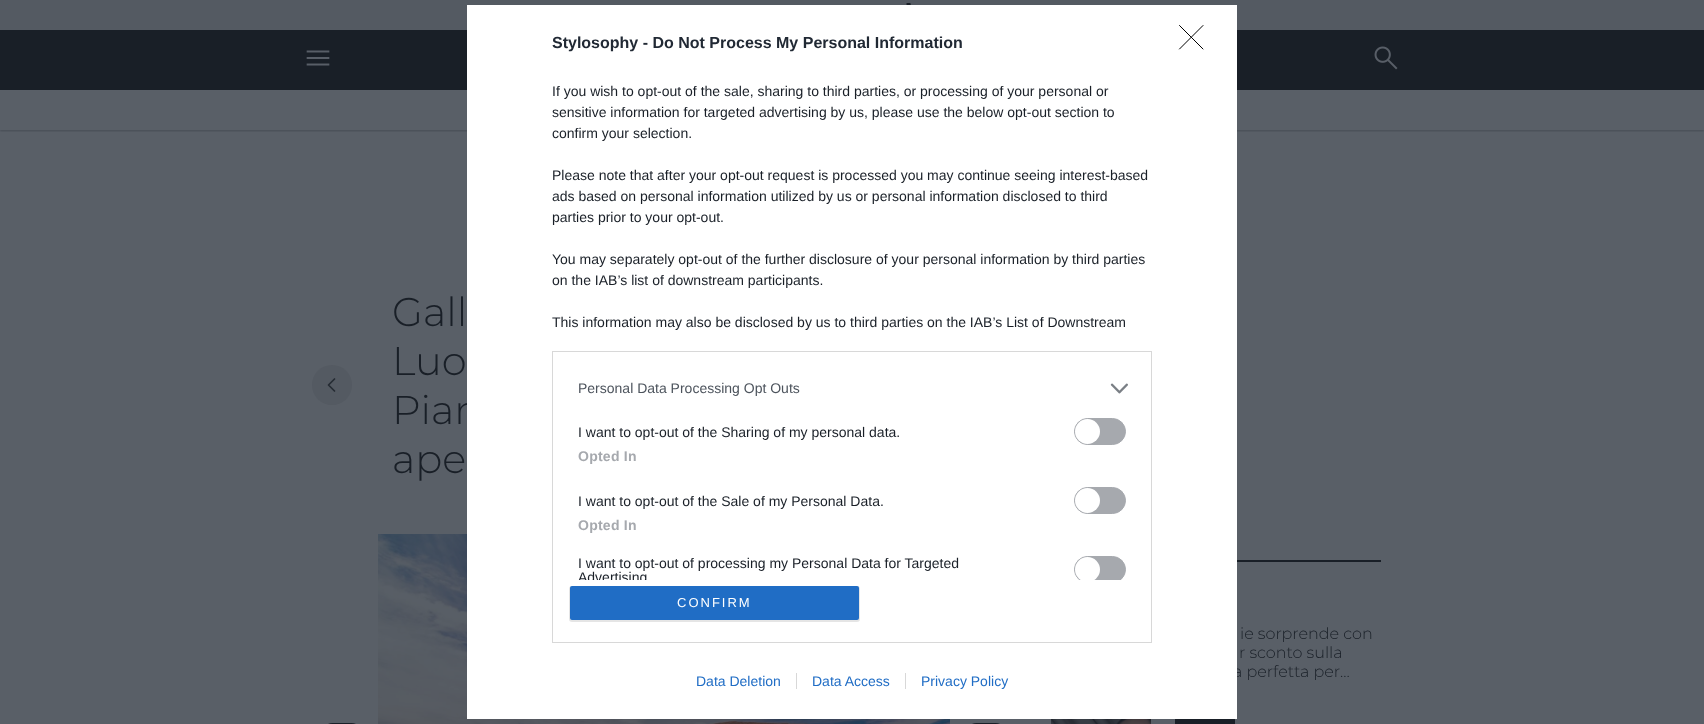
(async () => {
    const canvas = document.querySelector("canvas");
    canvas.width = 1704;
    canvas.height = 724;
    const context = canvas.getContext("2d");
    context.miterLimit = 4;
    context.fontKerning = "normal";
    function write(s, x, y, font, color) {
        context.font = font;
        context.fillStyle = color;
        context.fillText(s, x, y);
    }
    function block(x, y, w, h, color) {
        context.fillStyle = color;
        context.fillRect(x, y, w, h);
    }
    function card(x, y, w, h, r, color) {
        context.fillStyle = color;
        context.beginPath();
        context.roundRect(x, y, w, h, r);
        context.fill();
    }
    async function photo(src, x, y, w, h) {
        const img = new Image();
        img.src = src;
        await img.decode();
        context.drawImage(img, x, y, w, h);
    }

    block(0, 0, 1704, 724, "rgb(89, 95, 103)");
    context.save();
    context.beginPath();
    context.rect(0, 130, 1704, 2);
    context.clip();
    context.fillStyle = "rgba(25, 31, 39, 0.3)";
    context.filter = "blur(1px)";
    context.beginPath();
    context.rect(0, 1, 1704, 130);
    context.fill();
    context.filter = "none";
    context.restore();
    block(0, 0, 1704, 30, "rgb(84, 90, 98)");
    block(0, 30, 1704, 60, "rgb(25, 31, 39)");
    write("Pian", 392, 424, "300 40px Montserrat", "rgb(25, 31, 39)");
    await photo("media/5.png", 378, 534, 572, 190);
    write("a perfetta per…", 1233, 677, "300 16px Montserrat", "rgb(25, 31, 39)");
    block(467, 5, 770, 714, "rgb(255, 255, 255)");
    write("Stylosophy - Do Not Process My Personal Information", 552, 48, "bold 16px Liberation Sans", "rgb(33, 41, 52)");
    write("If you wish to opt-out of the sale, sharing to third parties, or processing of your personal or", 552, 96, "14px Liberation Sans", "rgb(25, 31, 39)");
    write("sensitive information for targeted advertising by us, please use the below opt-out section to", 552, 117, "14px Liberation Sans", "rgb(25, 31, 39)");
    write("confirm your selection.", 552, 138, "14px Liberation Sans", "rgb(25, 31, 39)");
    write("Please note that after your opt-out request is processed you may continue seeing interest-based", 552, 180, "14px Liberation Sans", "rgb(25, 31, 39)");
    write("ads based on personal information utilized by us or personal information disclosed to third", 552, 201, "14px Liberation Sans", "rgb(25, 31, 39)");
    write("parties prior to your opt-out.", 552, 222, "14px Liberation Sans", "rgb(25, 31, 39)");
    write("You may separately opt-out of the further disclosure of your personal information by third parties", 552, 264, "14px Liberation Sans", "rgb(25, 31, 39)");
    write("on the IAB’s list of downstream participants.", 552, 285, "14px Liberation Sans", "rgb(25, 31, 39)");
    write("This information may also be disclosed by us to third parties on the IAB’s List of Downstream", 552, 327, "14px Liberation Sans", "rgb(25, 31, 39)");
    context.strokeStyle = "rgb(216, 216, 216)";
    context.strokeRect(552.5, 351.5, 599, 291);
    write("Personal Data Processing Opt Outs", 578, 393, "14px Liberation Sans", "rgb(77, 84, 93)");
    await photo("media/1.png", 1110, 383, 18, 11);
    write("I want to opt-out of the Sharing of my personal data.", 578, 437, "14px Liberation Sans", "rgb(25, 31, 39)");
    context.fillStyle = "rgb(166, 169, 174)";
    context.beginPath();
    context.roundRect(1074.5, 418.5, 51, 26, 13);
    context.fill();
    context.strokeStyle = "rgb(166, 169, 174)";
    context.stroke();
    context.fillStyle = "rgb(255, 255, 255)";
    context.beginPath();
    context.arc(1087.5, 431.5, 12.5, 0, Math.PI * 2);
    context.fill();
    context.letterSpacing = "0.25px";
    write("Opted In", 578, 461, "bold 14px Liberation Sans", "rgb(166, 169, 174)");
    context.letterSpacing = "0px";
    write("I want to opt-out of the Sale of my Personal Data.", 578, 506, "14px Liberation Sans", "rgb(25, 31, 39)");
    context.fillStyle = "rgb(166, 169, 174)";
    context.beginPath();
    context.roundRect(1074.5, 487.5, 51, 26, 13);
    context.fill();
    context.stroke();
    context.fillStyle = "rgb(255, 255, 255)";
    context.beginPath();
    context.arc(1087.5, 500.5, 12.5, 0, Math.PI * 2);
    context.fill();
    context.letterSpacing = "0.25px";
    write("Opted In", 578, 530, "bold 14px Liberation Sans", "rgb(166, 169, 174)");
    context.letterSpacing = "0px";
    write("I want to opt-out of processing my Personal Data for Targeted", 578, 568, "14px Liberation Sans", "rgb(25, 31, 39)");
    context.save();
    context.beginPath();
    context.rect(563, 362, 578, 218);
    context.clip();
    write("Advertising", 578, 582, "14px Liberation Sans", "rgb(25, 31, 39)");
    context.fillStyle = "rgb(166, 169, 174)";
    context.beginPath();
    context.roundRect(1074.5, 556.5, 51, 26, 13);
    context.fill();
    context.stroke();
    context.fillStyle = "rgb(255, 255, 255)";
    context.beginPath();
    context.arc(1087.5, 569.5, 12.5, 0, Math.PI * 2);
    context.fill();
    context.restore();
    context.fillStyle = "rgba(0, 0, 0, 0.1)";
    context.filter = "blur(0.5px)";
    context.beginPath();
    context.roundRect(569, 586, 291, 36, 3);
    context.fill();
    context.filter = "none";
    card(570, 586, 289, 34, 2, "rgb(32, 109, 197)");
    context.letterSpacing = "2px";
    write("CONFIRM", 677, 607, "13px Liberation Sans", "rgb(255, 255, 255)");
    context.beginPath();
    context.moveTo(1179.5, 25.5);
    context.lineTo(1203, 49);
    context.moveTo(1203, 25.5);
    context.lineTo(1179.5, 49);
    context.strokeStyle = "rgb(0, 0, 0)";
    context.lineCap = "round";
    context.lineJoin = "round";
    context.stroke();
    context.letterSpacing = "0px";
    write("Data Deletion", 696, 686, "14px Liberation Sans", "rgb(32, 109, 197)");
    write("Data Access", 812, 686, "14px Liberation Sans", "rgb(32, 109, 197)");
    block(796, 673, 1, 16, "rgb(216, 216, 216)");
    write("Privacy Policy", 921, 686, "14px Liberation Sans", "rgb(32, 109, 197)");
    block(905, 673, 1, 16, "rgb(216, 216, 216)");
    await photo("media/2.png", 906, 3, 5, 2);
    await photo("media/3.png", 306, 50, 24, 16);
    await photo("media/4.png", 1374, 46, 24, 24);
    context.fillStyle = "rgb(84, 90, 98)";
    context.beginPath();
    context.arc(332, 385, 20, 0, Math.PI * 2);
    context.fill();
    context.beginPath();
    context.moveTo(334.5, 391);
    context.lineTo(328.5, 385);
    context.lineTo(334.5, 379);
    context.strokeStyle = "rgb(38, 44, 52)";
    context.lineWidth = 1.7;
    context.stroke();
    write("Gall", 392, 326, "300 40px Montserrat", "rgb(25, 31, 39)");
    write("Luo", 392, 375, "300 40px Montserrat", "rgb(25, 31, 39)");
    write("ape", 392, 473, "300 40px Montserrat", "rgb(25, 31, 39)");
    card(322, 723, 40, 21, 20, "rgb(25, 31, 39)");
    card(966, 723, 40, 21, 20, "rgb(25, 31, 39)");
    block(1237, 560, 144, 2, "rgb(25, 31, 39)");
    write("ie sorprende con", 1240, 639, "300 16px Montserrat", "rgb(25, 31, 39)");
    write("r sconto sulla", 1239, 658, "300 16px Montserrat", "rgb(25, 31, 39)");
    await photo("media/6.png", 1051, 719, 100, 5);
    block(1175, 719, 60, 5, "rgb(25, 31, 39)");
})();
